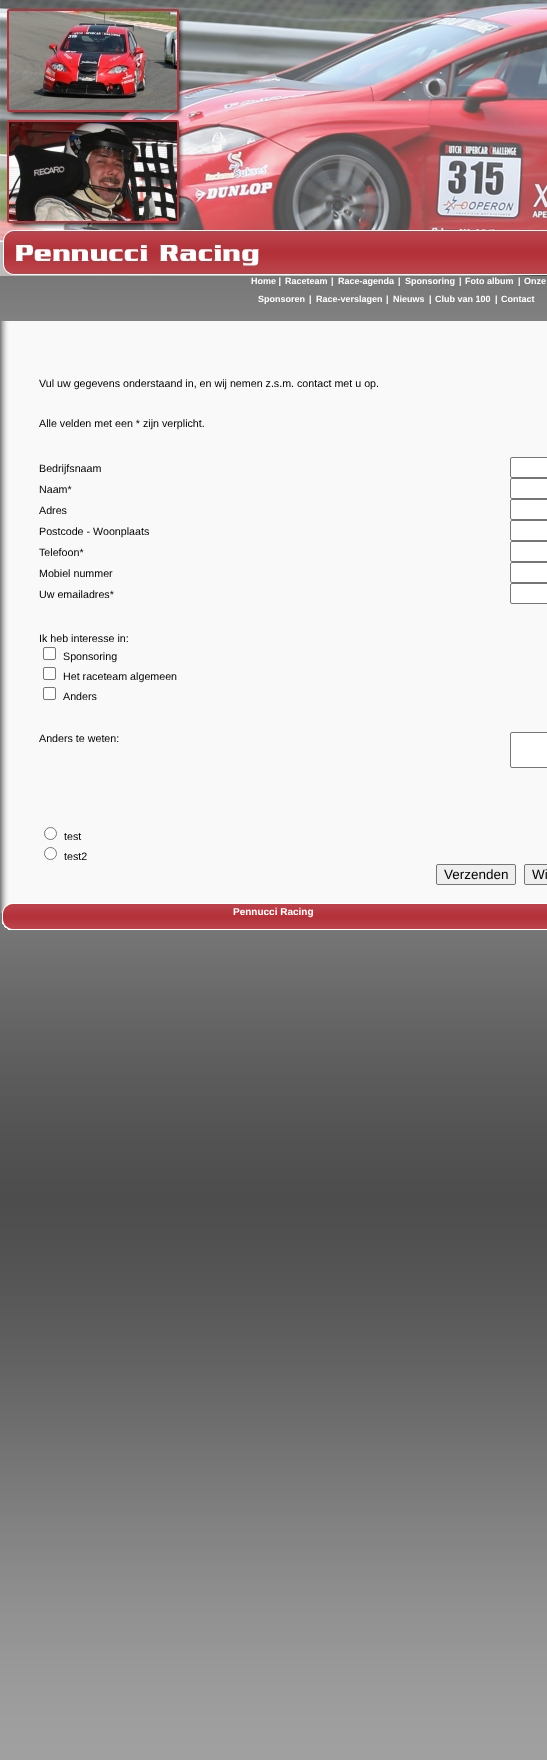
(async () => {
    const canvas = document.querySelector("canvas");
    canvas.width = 547;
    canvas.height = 1760;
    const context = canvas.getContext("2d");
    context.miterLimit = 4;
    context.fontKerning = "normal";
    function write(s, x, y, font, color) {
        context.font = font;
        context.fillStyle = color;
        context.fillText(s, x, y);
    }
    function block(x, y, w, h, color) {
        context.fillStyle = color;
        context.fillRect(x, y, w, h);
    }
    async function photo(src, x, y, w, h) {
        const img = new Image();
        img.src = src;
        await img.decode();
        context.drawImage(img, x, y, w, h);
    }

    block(0, 0, 547, 1760, "rgb(255, 255, 255)");
    await photo("media/1.png", 0, 276, 547, 1484);
    await photo("media/2.png", 0, 0, 547, 276);
    write("Home |", 251, 284, "bold 9px Liberation Sans", "rgb(255, 255, 255)");
    write("Raceteam", 285, 284, "bold 9px Liberation Sans", "rgb(255, 255, 255)");
    write("|", 331, 284, "bold 9px Liberation Sans", "rgb(255, 255, 255)");
    write("Race-agenda", 338, 284, "bold 9px Liberation Sans", "rgb(255, 255, 255)");
    write("|", 398, 284, "bold 9px Liberation Sans", "rgb(255, 255, 255)");
    write("Sponsoring", 405, 284, "bold 9px Liberation Sans", "rgb(255, 255, 255)");
    write("|", 459, 284, "bold 9px Liberation Sans", "rgb(255, 255, 255)");
    write("Foto album", 465, 284, "bold 9px Liberation Sans", "rgb(255, 255, 255)");
    write("|", 518, 284, "bold 9px Liberation Sans", "rgb(255, 255, 255)");
    write("Onze", 524, 284, "bold 9px Liberation Sans", "rgb(255, 255, 255)");
    write("Sponsoren", 258, 302, "bold 9px Liberation Sans", "rgb(255, 255, 255)");
    write("|", 309, 302, "bold 9px Liberation Sans", "rgb(255, 255, 255)");
    write("Race-verslagen", 316, 302, "bold 9px Liberation Sans", "rgb(255, 255, 255)");
    write("|", 386, 302, "bold 9px Liberation Sans", "rgb(255, 255, 255)");
    write("Nieuws", 393, 302, "bold 9px Liberation Sans", "rgb(255, 255, 255)");
    write("|", 429, 302, "bold 9px Liberation Sans", "rgb(255, 255, 255)");
    write("Club van 100", 435, 302, "bold 9px Liberation Sans", "rgb(255, 255, 255)");
    write("|", 495, 302, "bold 9px Liberation Sans", "rgb(255, 255, 255)");
    write("Contact", 501, 302, "bold 9px Liberation Sans", "rgb(255, 255, 255)");
    await photo("media/3.png", 0, 321, 547, 564);
    write("Vul uw gegevens onderstaand in, en wij nemen z.s.m. contact met u op.", 39, 387, "10.7px Liberation Sans", "rgb(0, 0, 0)");
    write("Alle velden met een * zijn verplicht.", 39, 427, "10.7px Liberation Sans", "rgb(0, 0, 0)");
    write("Bedrijfsnaam", 39, 472, "10.7px Liberation Sans", "rgb(0, 0, 0)");
    context.fillStyle = "rgb(255, 255, 255)";
    context.beginPath();
    context.roundRect(510.5, 457.5, 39, 20, 1.5);
    context.fill();
    context.strokeStyle = "rgb(118, 118, 118)";
    context.stroke();
    write("Naam*", 39, 493, "10.7px Liberation Sans", "rgb(0, 0, 0)");
    context.fillStyle = "rgb(255, 255, 255)";
    context.beginPath();
    context.roundRect(510.5, 478.5, 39, 20, 1.5);
    context.fill();
    context.stroke();
    write("Adres", 39, 514, "10.7px Liberation Sans", "rgb(0, 0, 0)");
    context.fillStyle = "rgb(255, 255, 255)";
    context.beginPath();
    context.roundRect(510.5, 499.5, 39, 20, 1.5);
    context.fill();
    context.stroke();
    write("Postcode - Woonplaats", 39, 535, "10.7px Liberation Sans", "rgb(0, 0, 0)");
    context.fillStyle = "rgb(255, 255, 255)";
    context.beginPath();
    context.roundRect(510.5, 520.5, 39, 20, 1.5);
    context.fill();
    context.stroke();
    write("Telefoon*", 39, 556, "10.7px Liberation Sans", "rgb(0, 0, 0)");
    context.fillStyle = "rgb(255, 255, 255)";
    context.beginPath();
    context.roundRect(510.5, 541.5, 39, 20, 1.5);
    context.fill();
    context.stroke();
    write("Mobiel nummer", 39, 577, "10.7px Liberation Sans", "rgb(0, 0, 0)");
    context.fillStyle = "rgb(255, 255, 255)";
    context.beginPath();
    context.roundRect(510.5, 562.5, 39, 20, 1.5);
    context.fill();
    context.stroke();
    write("Uw emailadres*", 39, 598, "10.7px Liberation Sans", "rgb(0, 0, 0)");
    context.fillStyle = "rgb(255, 255, 255)";
    context.beginPath();
    context.roundRect(510.5, 583.5, 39, 20, 1.5);
    context.fill();
    context.stroke();
    write("Ik heb interesse in:", 39, 642, "10.7px Liberation Sans", "rgb(0, 0, 0)");
    context.fillStyle = "rgb(255, 255, 255)";
    context.beginPath();
    context.roundRect(43.5, 647.5, 12, 12, 1.5);
    context.fill();
    context.stroke();
    write("Sponsoring", 63, 660, "10.7px Liberation Sans", "rgb(0, 0, 0)");
    context.fillStyle = "rgb(255, 255, 255)";
    context.beginPath();
    context.roundRect(43.5, 667.5, 12, 12, 1.5);
    context.fill();
    context.stroke();
    write("Het raceteam algemeen", 63, 680, "10.7px Liberation Sans", "rgb(0, 0, 0)");
    context.fillStyle = "rgb(255, 255, 255)";
    context.beginPath();
    context.roundRect(43.5, 687.5, 12, 12, 1.5);
    context.fill();
    context.stroke();
    write("Anders", 63, 700, "10.7px Liberation Sans", "rgb(0, 0, 0)");
    write("Anders te weten:", 39, 742, "10.7px Liberation Sans", "rgb(0, 0, 0)");
    context.fillStyle = "rgb(255, 255, 255)";
    context.beginPath();
    context.roundRect(510.5, 732.5, 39, 35, 1.5);
    context.fill();
    context.stroke();
    context.beginPath();
    context.arc(50.5, 833.5, 6, 0, Math.PI * 2);
    context.fill();
    context.stroke();
    write("test", 64, 840, "10.7px Liberation Sans", "rgb(0, 0, 0)");
    context.fillStyle = "rgb(255, 255, 255)";
    context.beginPath();
    context.arc(50.5, 853.5, 6, 0, Math.PI * 2);
    context.fill();
    context.stroke();
    write("test2", 64, 860, "10.7px Liberation Sans", "rgb(0, 0, 0)");
    context.fillStyle = "rgb(239, 239, 239)";
    context.beginPath();
    context.roundRect(436.5, 864.5, 79, 20, 1.5);
    context.fill();
    context.stroke();
    write("Verzenden", 444, 879, "13.5px Liberation Sans", "rgb(0, 0, 0)");
    context.fillStyle = "rgb(239, 239, 239)";
    context.beginPath();
    context.roundRect(524.5, 864.5, 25, 20, 1.5);
    context.fill();
    context.stroke();
    write("Wi", 532, 879, "13.5px Liberation Sans", "rgb(0, 0, 0)");
    await photo("media/4.png", 0, 885, 547, 45);
    write("Pennucci Racing", 233, 915, "bold 10px Liberation Sans", "rgb(255, 255, 255)");
})();
